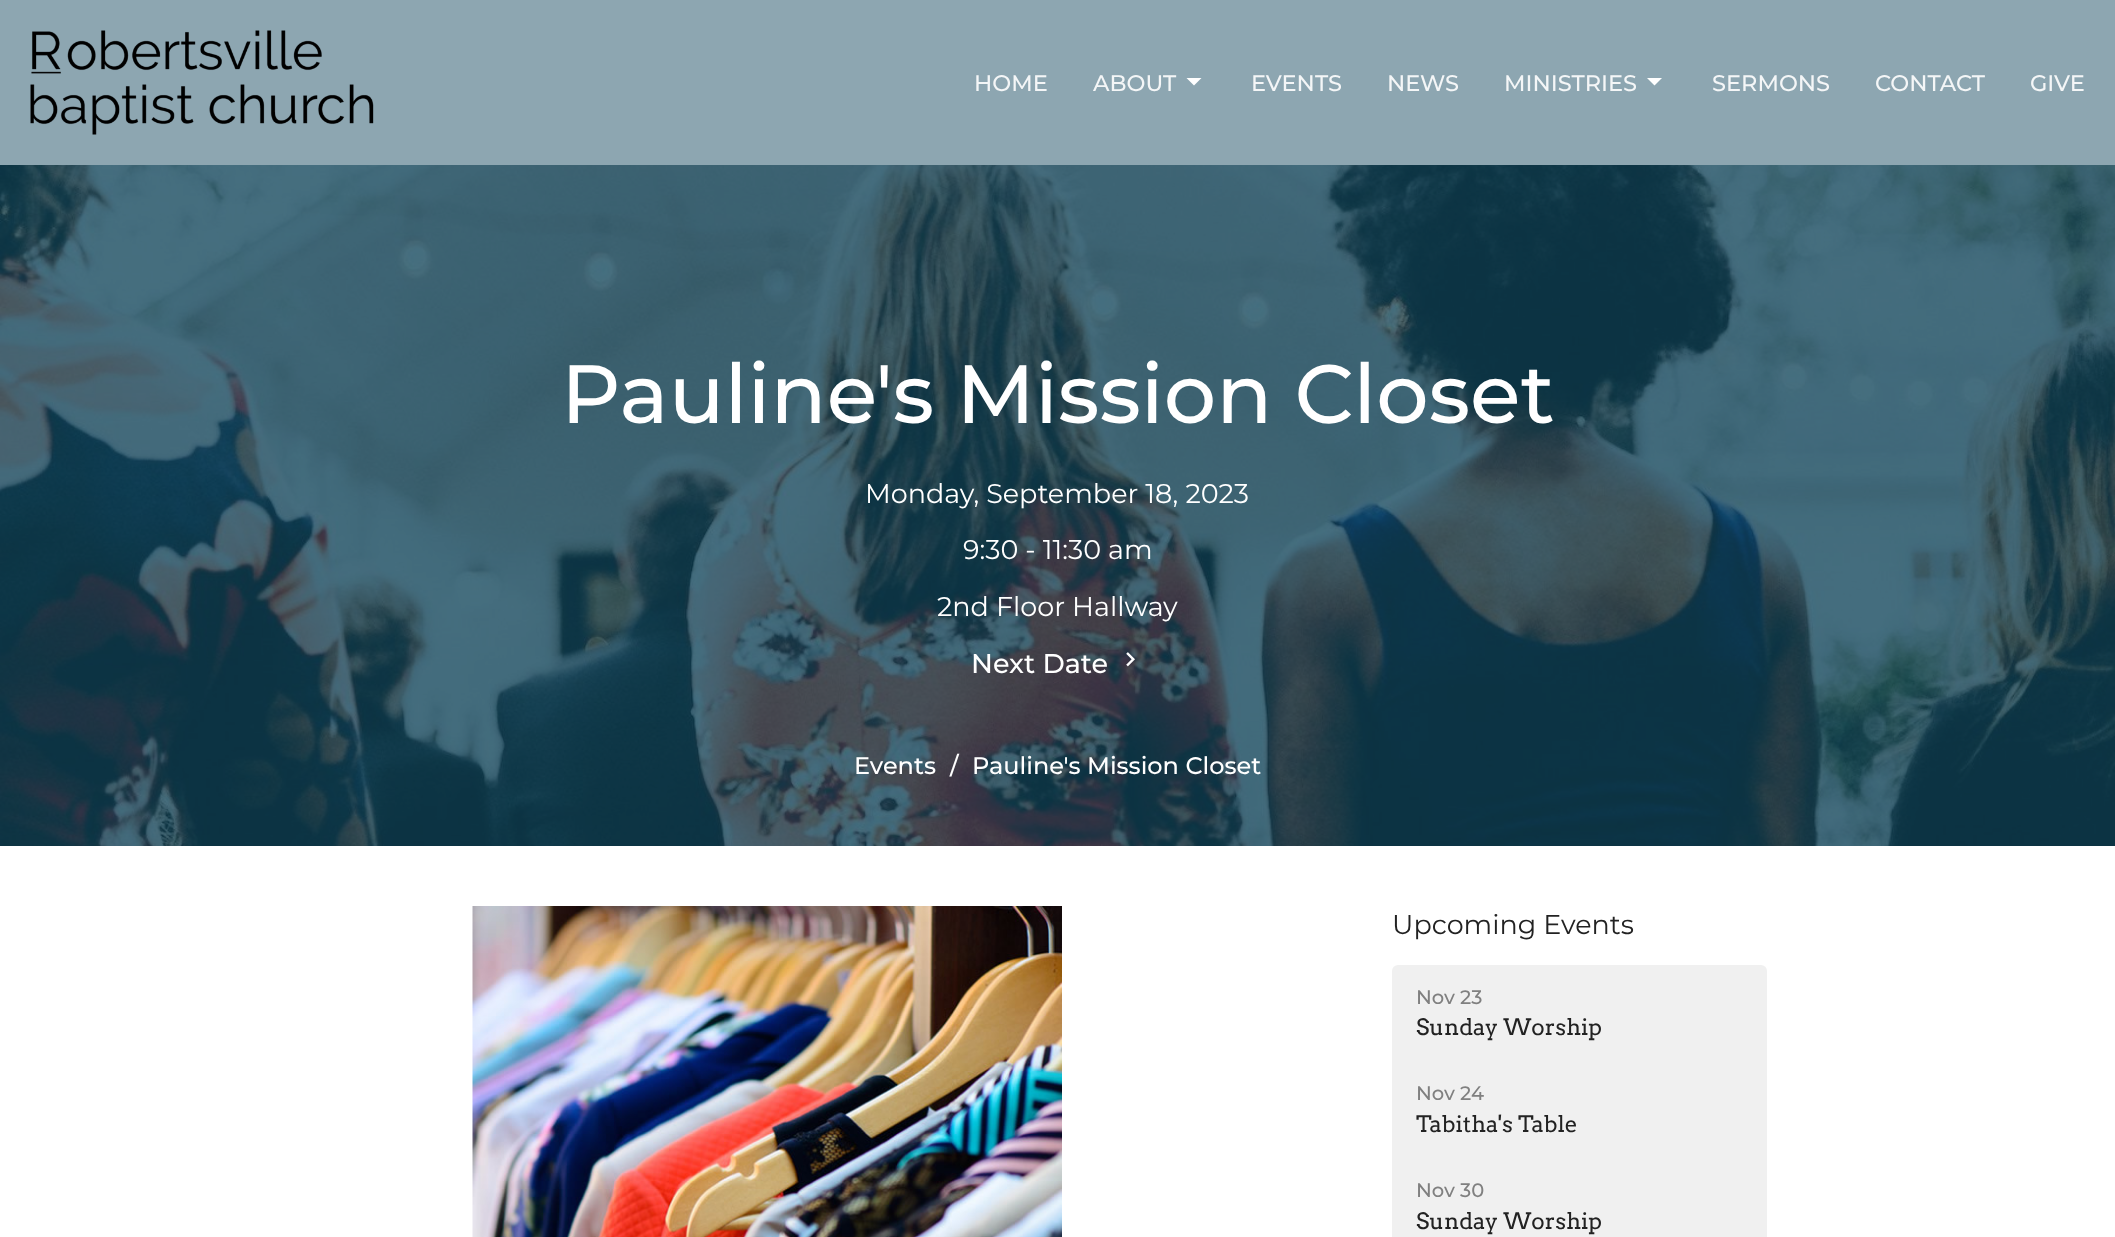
(async () => {
    const canvas = document.querySelector("canvas");
    canvas.width = 2115;
    canvas.height = 1237;
    const context = canvas.getContext("2d");
    context.miterLimit = 4;
    context.fontKerning = "normal";
    function write(s, x, y, font, color) {
        context.font = font;
        context.fillStyle = color;
        context.fillText(s, x, y);
    }
    function block(x, y, w, h, color) {
        context.fillStyle = color;
        context.fillRect(x, y, w, h);
    }
    async function photo(src, x, y, w, h) {
        const img = new Image();
        img.src = src;
        await img.decode();
        context.drawImage(img, x, y, w, h);
    }

    block(0, 0, 2115, 1237, "rgb(255, 255, 255)");
    block(0, 0, 2115, 165, "rgb(141, 166, 177)");
    await photo("media/1.png", 30, 30, 344, 105);
    write("HOME", 974, 91, "500 22.5px Montserrat", "rgb(244, 246, 247)");
    write("ABOUT", 1093, 91, "500 22.5px Montserrat", "rgb(244, 246, 247)");
    context.fillStyle = "rgb(255, 255, 255)";
    context.beginPath();
    context.moveTo(1186.5, 78);
    context.lineTo(1194, 85.5);
    context.lineTo(1201.5, 78);
    context.closePath();
    context.fill();
    write("EVENTS", 1251, 91, "500 22.5px Montserrat", "rgb(244, 246, 247)");
    write("NEWS", 1387, 91, "500 22.5px Montserrat", "rgb(244, 246, 247)");
    write("MINISTRIES", 1504, 91, "500 22.5px Montserrat", "rgb(244, 246, 247)");
    context.fillStyle = "rgb(255, 255, 255)";
    context.beginPath();
    context.moveTo(1647, 78);
    context.lineTo(1654.5, 85.5);
    context.lineTo(1662, 78);
    context.closePath();
    context.fill();
    write("SERMONS", 1712, 91, "500 22.5px Montserrat", "rgb(244, 246, 247)");
    write("CONTACT", 1875, 91, "500 22.5px Montserrat", "rgb(244, 246, 247)");
    write("GIVE", 2030, 91, "500 22.5px Montserrat", "rgb(244, 246, 247)");
    await photo("media/2.png", 0, 165, 2115, 681);
    write("Pauline's Mission Closet", 561, 423, "500 82.5px Montserrat", "rgb(255, 255, 255)");
    write("Monday, September 18, 2023", 865, 503, "27px Montserrat", "rgb(255, 255, 255)");
    write("9:30 - 11:30 am", 963, 559, "27px Montserrat", "rgb(255, 255, 255)");
    write("2nd Floor Hallway", 937, 616, "27px Montserrat", "rgb(255, 255, 255)");
    write("Next Date", 971, 673, "500 27px Montserrat", "rgb(255, 255, 255)");
    await photo("media/3.png", 1126, 652, 9, 15);
    write("Events", 854, 774, "500 24px Montserrat", "rgb(255, 255, 255)");
    write("/", 950, 774, "500 24px Montserrat", "rgb(255, 255, 255)");
    write("Pauline's Mission Closet", 972, 774, "500 24px Montserrat", "rgb(255, 255, 255)");
    await photo("media/4.png", 472, 906, 590, 331);
    write("Upcoming Events", 1392, 934, "27px Montserrat", "rgb(34, 34, 34)");
    context.fillStyle = "rgb(240, 240, 240)";
    context.beginPath();
    context.roundRect(1392, 965, 375, 99, [6, 6, 0, 0]);
    context.fill();
    write("Nov 23", 1416, 1004, "500 19.5px Montserrat", "rgb(128, 128, 128)");
    write("Sunday Worship", 1416, 1035, "22.5px Arvo", "rgb(34, 34, 34)");
    block(1392, 1064, 375, 173, "rgb(240, 240, 240)");
    write("Nov 24", 1416, 1100, "500 19.5px Montserrat", "rgb(128, 128, 128)");
    write("Tabitha's Table", 1416, 1132, "22.5px Arvo", "rgb(34, 34, 34)");
    write("Nov 30", 1416, 1197, "500 19.5px Montserrat", "rgb(128, 128, 128)");
    write("Sunday Worship", 1416, 1229, "22.5px Arvo", "rgb(34, 34, 34)");
})();
